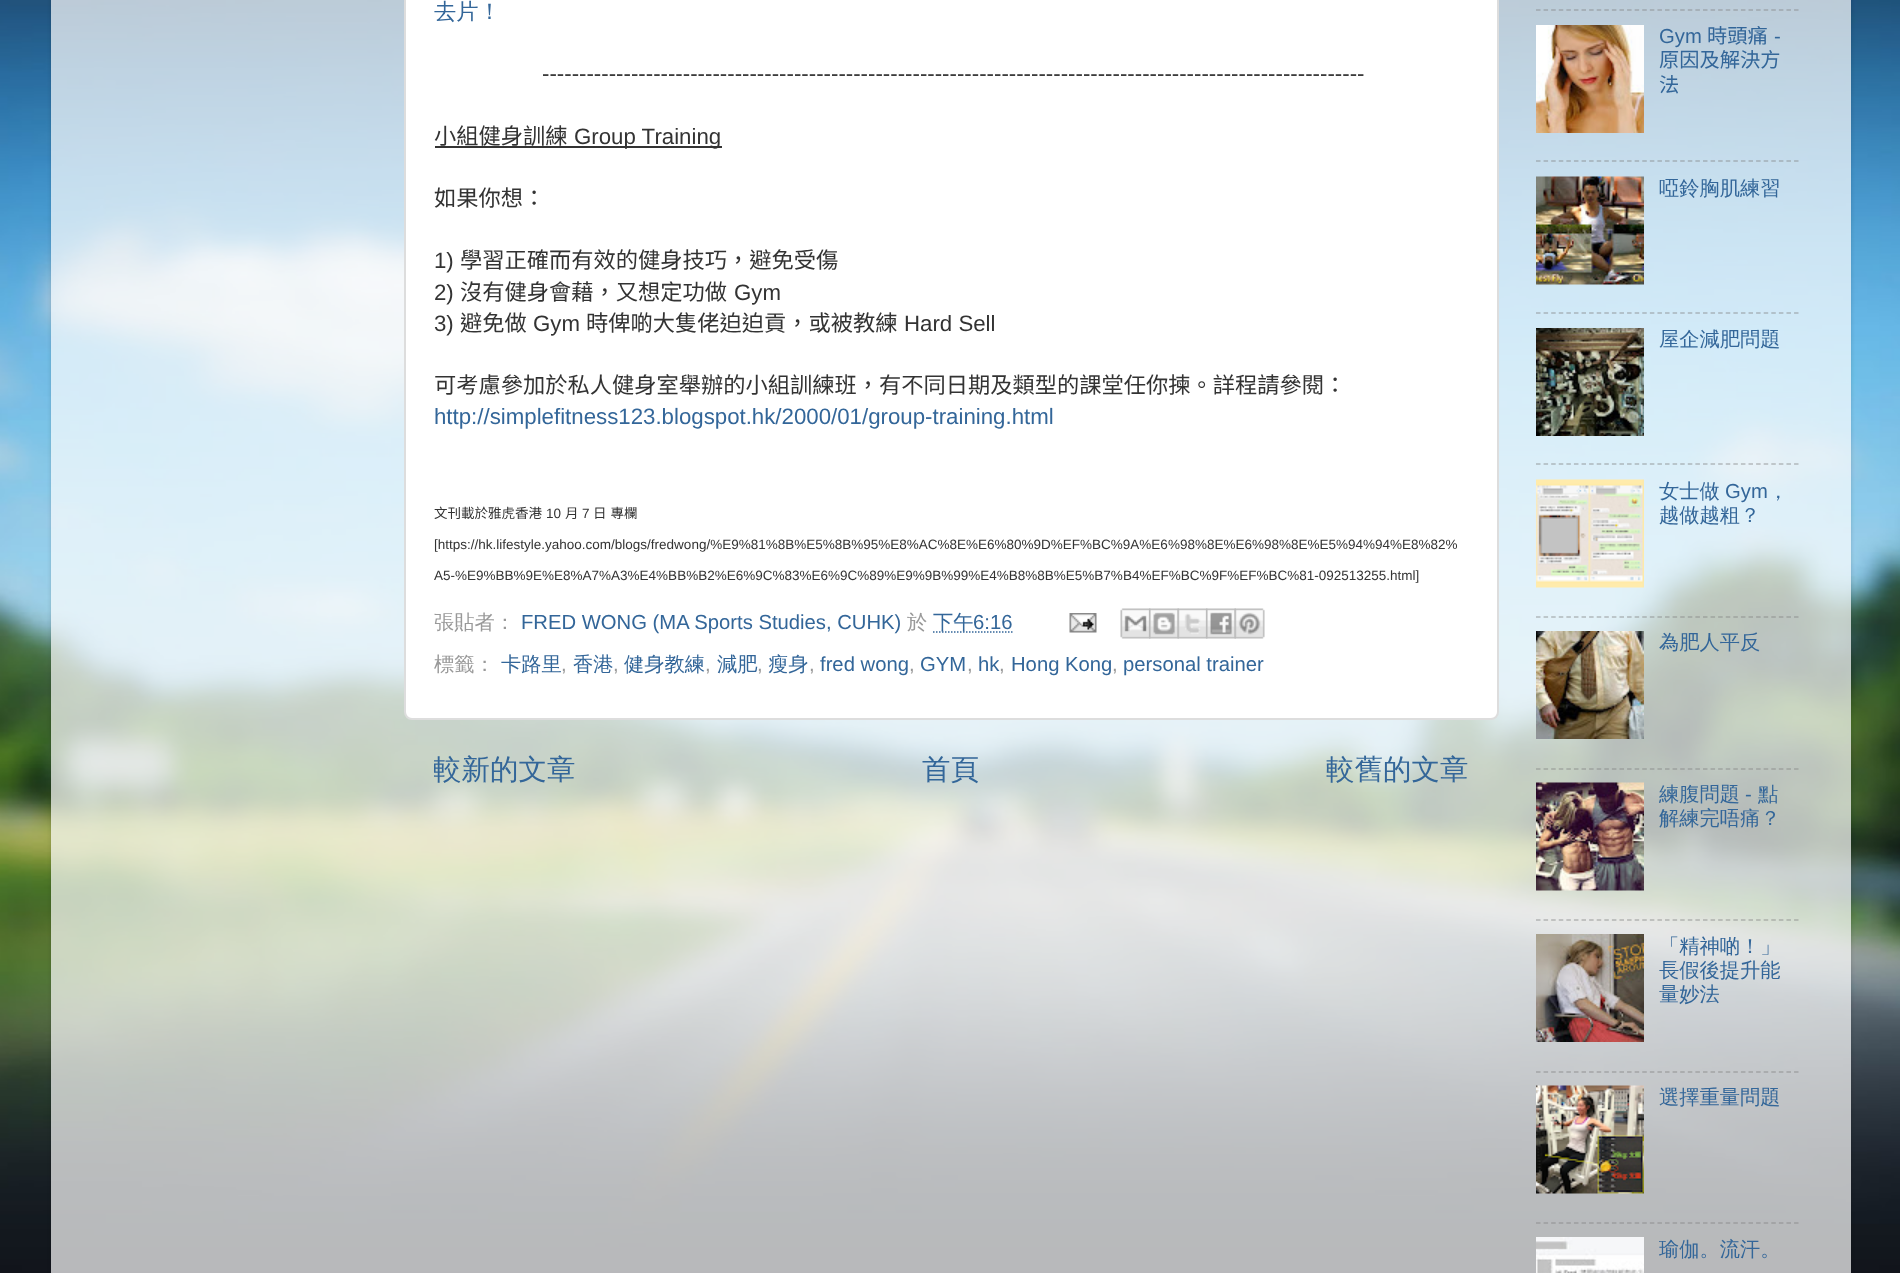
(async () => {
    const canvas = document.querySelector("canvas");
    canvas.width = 1900;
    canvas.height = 1273;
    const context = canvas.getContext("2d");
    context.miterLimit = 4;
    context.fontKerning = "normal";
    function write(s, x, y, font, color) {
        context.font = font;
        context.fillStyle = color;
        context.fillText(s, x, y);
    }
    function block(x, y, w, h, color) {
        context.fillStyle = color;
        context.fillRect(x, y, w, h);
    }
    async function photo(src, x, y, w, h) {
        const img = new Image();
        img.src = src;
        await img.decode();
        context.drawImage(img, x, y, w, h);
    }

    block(0, 0, 1900, 1273, "rgb(255, 255, 255)");
    await photo("media/1.png", 0, 0, 1900, 1273);
    context.save();
    context.beginPath();
    context.moveTo(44, 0);
    context.lineTo(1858, 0);
    context.lineTo(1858, 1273);
    context.lineTo(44, 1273);
    context.closePath();
    context.moveTo(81, -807);
    context.lineTo(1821, -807);
    context.bezierCurveTo(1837.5, -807, 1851, -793.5, 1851, -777);
    context.lineTo(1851, 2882);
    context.lineTo(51, 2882);
    context.lineTo(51, -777);
    context.bezierCurveTo(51, -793.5, 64.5, -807, 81, -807);
    context.closePath();
    context.clip("evenodd");
    context.fillStyle = "rgba(0, 0, 0, 0.15)";
    context.filter = "blur(2px)";
    context.beginPath();
    context.roundRect(51, -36, 1800, 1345, 30);
    context.fill();
    context.filter = "none";
    context.restore();
    context.beginPath();
    context.roundRect(405, -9, 1093, 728, 7);
    context.fill();
    context.strokeStyle = "rgb(221, 221, 221)";
    context.lineWidth = 2;
    context.stroke();
    write("去片！", 434, 19, "500 22.25px WenQuanYi Zen Hei", "rgb(51, 102, 153)");
    write("---------------------------------------------------------------------------------------------------------------", 542, 81, "22.25px Liberation Sans", "rgb(51, 51, 51)");
    write("小組健身訓練", 434, 144, "22.25px Noto Sans CJK TC", "rgb(51, 51, 51)");
    block(435, 146, 287, 2, "rgb(51, 51, 51)");
    write("Group Training", 574, 144, "22.25px Liberation Sans", "rgb(51, 51, 51)");
    write("如果你想：", 434, 206, "22.25px Noto Sans CJK TC", "rgb(51, 51, 51)");
    write("1)", 434, 268, "22.25px Liberation Sans", "rgb(51, 51, 51)");
    write("學習正確而有效的健身技巧，避免受傷", 460, 268, "22.25px Noto Sans CJK TC", "rgb(51, 51, 51)");
    write("2)", 434, 300, "22.25px Liberation Sans", "rgb(51, 51, 51)");
    write("沒有健身會藉，又想定功做", 460, 300, "22.25px Noto Sans CJK TC", "rgb(51, 51, 51)");
    write("Gym", 734, 300, "22.25px Liberation Sans", "rgb(51, 51, 51)");
    write("3)", 434, 331, "22.25px Liberation Sans", "rgb(51, 51, 51)");
    write("避免做", 460, 331, "22.25px Noto Sans CJK TC", "rgb(51, 51, 51)");
    write("Gym", 533, 331, "22.25px Liberation Sans", "rgb(51, 51, 51)");
    write("時俾啲大隻佬迫迫貢，或被教練", 586, 331, "22.25px Noto Sans CJK TC", "rgb(51, 51, 51)");
    write("Hard Sell", 904, 331, "22.25px Liberation Sans", "rgb(51, 51, 51)");
    write("可考慮參加於私人健身室舉辦的小組訓練班，有不同日期及類型的課堂任你揀。詳程請參閱：", 434, 393, "22.25px Noto Sans CJK TC", "rgb(51, 51, 51)");
    write("http://simplefitness123.blogspot.hk/2000/01/group-training.html", 434, 424, "22.25px Liberation Sans", "rgb(51, 102, 153)");
    write("文刊載於雅虎香港", 434, 518, "13.5px Noto Sans CJK TC", "rgb(51, 51, 51)");
    write("10", 546, 518, "13.5px Liberation Sans", "rgb(51, 51, 51)");
    write("月", 565, 518, "13.5px Noto Sans CJK TC", "rgb(51, 51, 51)");
    write("7", 582, 518, "13.5px Liberation Sans", "rgb(51, 51, 51)");
    context.wordSpacing = "1px";
    write("日 專欄", 593, 518, "13.5px Noto Sans CJK TC", "rgb(51, 51, 51)");
    context.wordSpacing = "0px";
    write("[https://hk.lifestyle.yahoo.com/blogs/fredwong/%E9%81%8B%E5%8B%95%E8%AC%8E%E6%80%9D%EF%BC%9A%E6%98%8E%E6%98%8E%E5%94%94%E8%82%", 434, 549, "13.5px Liberation Sans", "rgb(51, 51, 51)");
    write("A5-%E9%BB%9E%E8%A7%A3%E4%BB%B2%E6%9C%83%E6%9C%89%E9%9B%99%E4%B8%8B%E5%B7%B4%EF%BC%9F%EF%BC%81-092513255.html]", 434, 580, "13.5px Liberation Sans", "rgb(51, 51, 51)");
    write("張貼者：", 434, 629, "500 20.25px WenQuanYi Zen Hei", "rgb(153, 153, 153)");
    write("FRED WONG (MA Sports Studies, CUHK)", 521, 629, "20.25px Liberation Sans", "rgb(51, 102, 153)");
    write("於", 907, 629, "500 20.25px WenQuanYi Zen Hei", "rgb(153, 153, 153)");
    context.beginPath();
    context.moveTo(933, 632);
    context.lineTo(1012.5, 632);
    context.strokeStyle = "rgb(51, 102, 153)";
    context.lineWidth = 1.5;
    context.setLineDash([1.5, 1.5]);
    context.stroke();
    write("下午", 933, 629, "500 20.25px WenQuanYi Zen Hei", "rgb(51, 102, 153)");
    write("6:16", 973, 629, "20.25px Liberation Sans", "rgb(51, 102, 153)");
    await photo("media/2.png", 1069, 613, 28, 20);
    await photo("media/3.png", 1120, 608, 31, 31);
    await photo("media/4.png", 1149, 608, 30, 31);
    await photo("media/5.png", 1177, 608, 31, 31);
    await photo("media/6.png", 1206, 608, 30, 31);
    await photo("media/7.png", 1234, 608, 31, 31);
    write("標籤：", 434, 671, "500 20.25px WenQuanYi Zen Hei", "rgb(153, 153, 153)");
    write("卡路里", 501, 671, "500 20.25px WenQuanYi Zen Hei", "rgb(51, 102, 153)");
    write(",", 561, 671, "20.25px Liberation Sans", "rgb(153, 153, 153)");
    write("香港", 573, 671, "500 20.25px WenQuanYi Zen Hei", "rgb(51, 102, 153)");
    write(",", 613, 671, "20.25px Liberation Sans", "rgb(153, 153, 153)");
    write("健身教練", 624, 671, "500 20.25px WenQuanYi Zen Hei", "rgb(51, 102, 153)");
    write(",", 705, 671, "20.25px Liberation Sans", "rgb(153, 153, 153)");
    write("減肥", 717, 671, "500 20.25px WenQuanYi Zen Hei", "rgb(51, 102, 153)");
    write(",", 757, 671, "20.25px Liberation Sans", "rgb(153, 153, 153)");
    write("瘦身", 768, 671, "500 20.25px WenQuanYi Zen Hei", "rgb(51, 102, 153)");
    write(",", 809, 671, "20.25px Liberation Sans", "rgb(153, 153, 153)");
    write("fred wong", 820, 671, "20.25px Liberation Sans", "rgb(51, 102, 153)");
    write(",", 909, 671, "20.25px Liberation Sans", "rgb(153, 153, 153)");
    write("GYM", 920, 671, "20.25px Liberation Sans", "rgb(51, 102, 153)");
    write(",", 967, 671, "20.25px Liberation Sans", "rgb(153, 153, 153)");
    write("hk", 978, 671, "20.25px Liberation Sans", "rgb(51, 102, 153)");
    write(",", 999, 671, "20.25px Liberation Sans", "rgb(153, 153, 153)");
    write("Hong Kong", 1011, 671, "20.25px Liberation Sans", "rgb(51, 102, 153)");
    write(",", 1112, 671, "20.25px Liberation Sans", "rgb(153, 153, 153)");
    write("personal trainer", 1123, 671, "20.25px Liberation Sans", "rgb(51, 102, 153)");
    context.save();
    context.beginPath();
    context.rect(434, 750, 1035, 41);
    context.clip();
    write("較新的文章", 433, 779, "500 28.5px WenQuanYi Zen Hei", "rgb(51, 102, 153)");
    context.restore();
    write("首頁", 922, 779, "500 28.5px WenQuanYi Zen Hei", "rgb(51, 102, 153)");
    write("較舊的文章", 1326, 779, "500 28.5px WenQuanYi Zen Hei", "rgb(51, 102, 153)");
    context.beginPath();
    context.moveTo(1536, 10);
    context.lineTo(1798.5, 10);
    context.strokeStyle = "rgb(158, 166, 173)";
    context.setLineDash([4.5, 3.09]);
    context.stroke();
    await photo("media/8.png", 1536, 25, 108, 108);
    write("Gym", 1659, 43, "20.25px Liberation Sans", "rgb(51, 102, 153)");
    write("時頭痛", 1707, 43, "20.25px Noto Sans CJK TC", "rgb(51, 102, 153)");
    write("-", 1774, 43, "20.25px Liberation Sans", "rgb(51, 102, 153)");
    write("原因及解決方", 1659, 67, "20.25px Noto Sans CJK TC", "rgb(51, 102, 153)");
    write("法", 1659, 92, "20.25px Noto Sans CJK TC", "rgb(51, 102, 153)");
    context.beginPath();
    context.moveTo(1536, 161);
    context.lineTo(1798.5, 161);
    context.strokeStyle = "rgb(163, 174, 182)";
    context.stroke();
    await photo("media/9.png", 1536, 176, 108, 109);
    write("啞鈴胸肌練習", 1659, 195, "500 20.25px WenQuanYi Zen Hei", "rgb(51, 102, 153)");
    context.beginPath();
    context.moveTo(1536, 313);
    context.lineTo(1798.5, 313);
    context.strokeStyle = "rgb(168, 180, 188)";
    context.stroke();
    await photo("media/10.png", 1536, 328, 108, 108);
    write("屋企減肥問題", 1659, 346, "500 20.25px WenQuanYi Zen Hei", "rgb(51, 102, 153)");
    context.beginPath();
    context.moveTo(1536, 464);
    context.lineTo(1798.5, 464);
    context.strokeStyle = "rgba(128, 128, 128, 0.5)";
    context.stroke();
    await photo("media/11.png", 1536, 479, 108, 109);
    write("女士做", 1659, 498, "500 20.25px WenQuanYi Zen Hei", "rgb(51, 102, 153)");
    write("Gym", 1725, 498, "20.25px Liberation Sans", "rgb(51, 102, 153)");
    write("，", 1768, 498, "500 20.25px WenQuanYi Zen Hei", "rgb(51, 102, 153)");
    write("越做越粗？", 1659, 522, "500 20.25px WenQuanYi Zen Hei", "rgb(51, 102, 153)");
    context.beginPath();
    context.moveTo(1536, 617);
    context.lineTo(1798.5, 617);
    context.stroke();
    await photo("media/12.png", 1536, 631, 108, 108);
    write("為肥人平反", 1659, 649, "500 20.25px WenQuanYi Zen Hei", "rgb(51, 102, 153)");
    context.beginPath();
    context.moveTo(1536, 769);
    context.lineTo(1798.5, 769);
    context.stroke();
    await photo("media/13.png", 1536, 782, 108, 109);
    write("練腹問題", 1659, 801, "500 20.25px WenQuanYi Zen Hei", "rgb(51, 102, 153)");
    write("-", 1745, 801, "20.25px Liberation Sans", "rgb(51, 102, 153)");
    write("點", 1758, 801, "500 20.25px WenQuanYi Zen Hei", "rgb(51, 102, 153)");
    write("解練完唔痛？", 1659, 825, "500 20.25px WenQuanYi Zen Hei", "rgb(51, 102, 153)");
    context.beginPath();
    context.moveTo(1536, 920);
    context.lineTo(1798.5, 920);
    context.stroke();
    await photo("media/14.png", 1536, 934, 108, 108);
    write("「精神啲！」", 1659, 953, "500 20.25px WenQuanYi Zen Hei", "rgb(51, 102, 153)");
    write("長假後提升能", 1659, 977, "500 20.25px WenQuanYi Zen Hei", "rgb(51, 102, 153)");
    write("量妙法", 1659, 1001, "500 20.25px WenQuanYi Zen Hei", "rgb(51, 102, 153)");
    context.beginPath();
    context.moveTo(1536, 1072);
    context.lineTo(1798.5, 1072);
    context.stroke();
    await photo("media/15.png", 1536, 1085, 108, 109);
    write("選擇重量問題", 1659, 1104, "500 20.25px WenQuanYi Zen Hei", "rgb(51, 102, 153)");
    context.beginPath();
    context.moveTo(1536, 1223);
    context.lineTo(1798.5, 1223);
    context.strokeStyle = "rgb(156, 157, 158)";
    context.stroke();
    await photo("media/16.png", 1536, 1237, 108, 36);
    write("瑜伽。流汗。", 1659, 1256, "500 20.25px WenQuanYi Zen Hei", "rgb(51, 102, 153)");
})();
